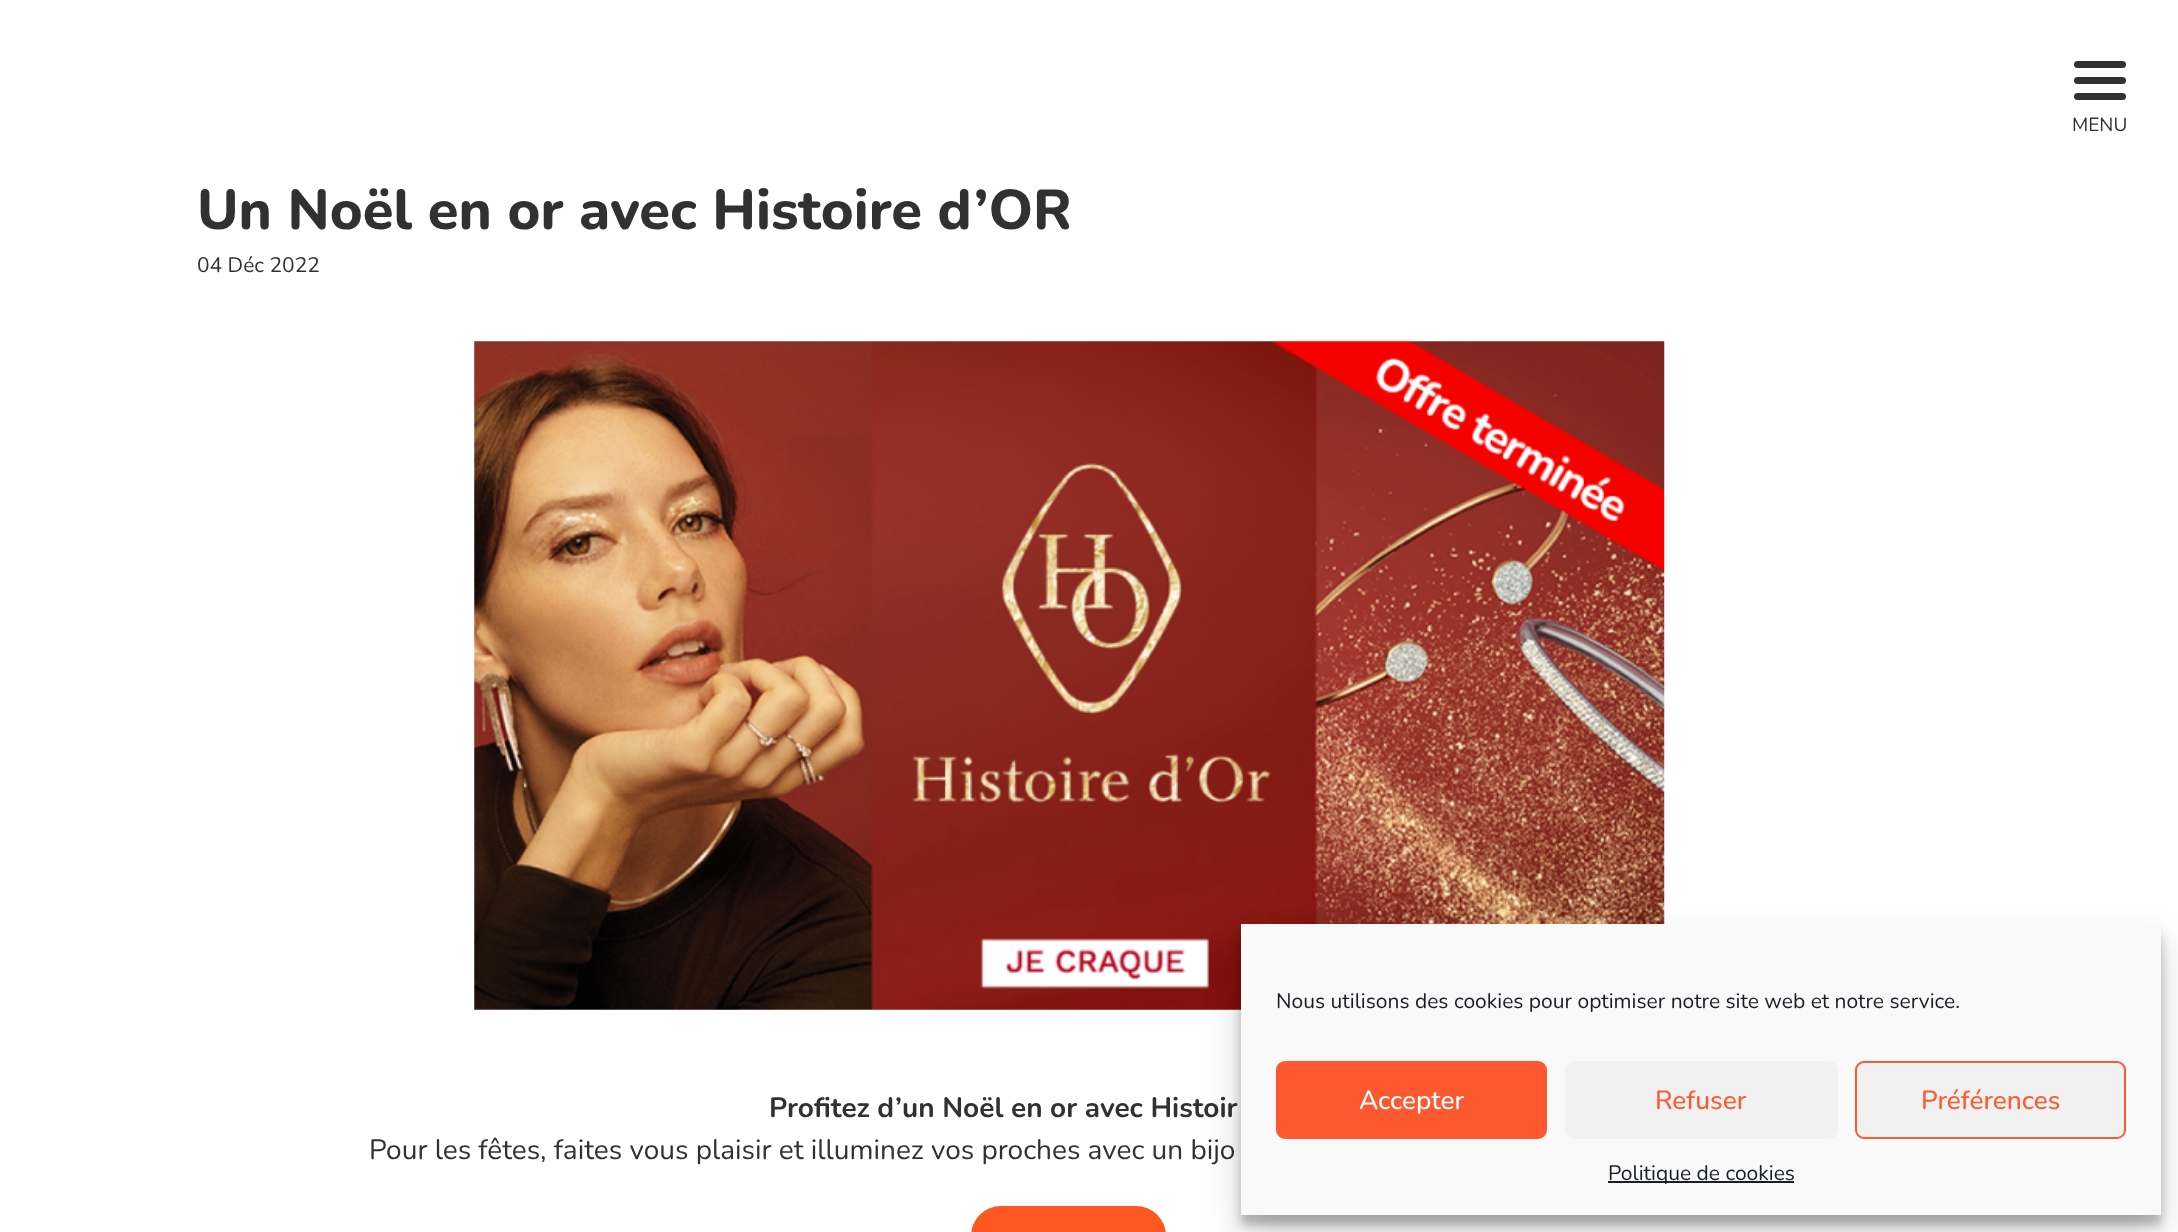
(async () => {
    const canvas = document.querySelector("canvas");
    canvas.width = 2178;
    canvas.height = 1232;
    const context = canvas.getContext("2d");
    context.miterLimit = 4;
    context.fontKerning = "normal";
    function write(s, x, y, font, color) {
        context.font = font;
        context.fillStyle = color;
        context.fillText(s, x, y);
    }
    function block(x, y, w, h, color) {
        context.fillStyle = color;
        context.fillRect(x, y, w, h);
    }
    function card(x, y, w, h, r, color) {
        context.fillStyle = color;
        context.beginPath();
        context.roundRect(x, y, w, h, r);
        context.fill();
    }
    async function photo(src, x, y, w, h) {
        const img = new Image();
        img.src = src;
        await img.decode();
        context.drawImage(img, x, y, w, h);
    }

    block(0, 0, 2178, 1232, "rgb(255, 255, 255)");
    card(2074, 77, 52, 7, 3.5, "rgb(49, 49, 49)");
    card(2074, 61, 52, 7, 3.5, "rgb(49, 49, 49)");
    card(2074, 93, 52, 7, 3.5, "rgb(49, 49, 49)");
    write("MENU", 2072, 131, "19px Nunito", "rgb(49, 49, 49)");
    write("Un Noël en or avec Histoire d’OR", 197, 229, "800 56px Nunito", "rgb(49, 49, 49)");
    write("04 Déc 2022", 197, 272, "21px Nunito", "rgb(49, 49, 49)");
    await photo("media/1.png", 474, 341, 1191, 669);
    write("Profitez d’un Noël en or avec Histoir", 769, 1117, "bold 28px Nunito", "rgb(49, 49, 49)");
    write("Pour les fêtes, faites vous plaisir et illuminez vos proches avec un bijo", 369, 1159, "28px Nunito", "rgb(49, 49, 49)");
    card(971, 1206, 195, 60, 34, "rgb(255, 87, 34)");
    context.fillStyle = "rgba(0, 0, 0, 0.23)";
    context.filter = "blur(5px)";
    context.beginPath();
    context.rect(1241, 935, 920, 290);
    context.fill();
    context.filter = "none";
    context.fillStyle = "rgba(0, 0, 0, 0.19)";
    context.filter = "blur(17.5px)";
    context.beginPath();
    context.rect(1241, 942, 920, 290);
    context.fill();
    context.filter = "none";
    block(1241, 924, 920, 291, "rgb(249, 249, 249)");
    write("Nous utilisons des cookies pour optimiser notre site web et notre service.", 1276, 1008, "21px Nunito", "rgb(25, 30, 35)");
    context.fillStyle = "rgb(253, 88, 48)";
    context.beginPath();
    context.roundRect(1277, 1062, 269, 76, 8);
    context.fill();
    context.strokeStyle = "rgb(253, 88, 48)";
    context.lineWidth = 2;
    context.stroke();
    write("Accepter", 1359, 1109, "500 26.25px Nunito", "rgb(255, 255, 255)");
    card(1565, 1061, 273, 78, 9, "rgb(241, 241, 241)");
    write("Refuser", 1655, 1109, "500 26.25px Nunito", "rgb(253, 88, 48)");
    context.fillStyle = "rgb(241, 241, 241)";
    context.beginPath();
    context.roundRect(1856, 1062, 269, 76, 8);
    context.fill();
    context.stroke();
    write("Préférences", 1921, 1109, "500 26.25px Nunito", "rgb(253, 88, 48)");
    block(1608, 1181, 186, 2, "rgb(25, 30, 35)");
    write("Politique de cookies", 1608, 1180, "21px Nunito", "rgb(25, 30, 35)");
})();
